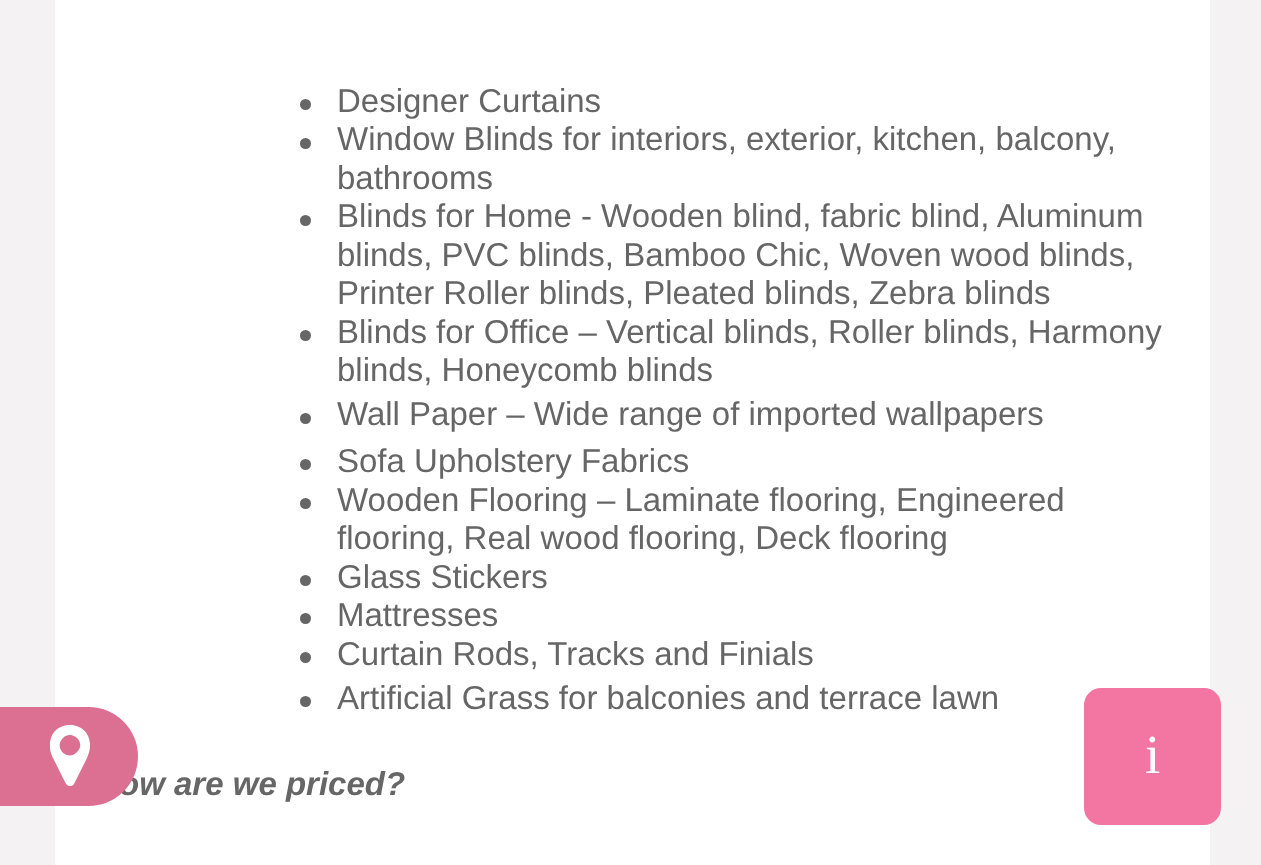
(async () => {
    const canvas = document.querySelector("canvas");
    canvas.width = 1261;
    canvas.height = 865;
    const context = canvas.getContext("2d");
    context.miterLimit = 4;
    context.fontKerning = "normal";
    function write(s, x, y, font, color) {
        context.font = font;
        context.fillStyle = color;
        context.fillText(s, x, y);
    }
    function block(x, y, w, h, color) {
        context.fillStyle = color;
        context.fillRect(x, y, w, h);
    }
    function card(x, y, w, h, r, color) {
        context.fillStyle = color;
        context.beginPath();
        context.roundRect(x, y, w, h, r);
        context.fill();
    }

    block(0, 0, 1261, 865, "rgb(244, 242, 242)");
    block(55, 0, 1155, 865, "rgb(255, 255, 255)");
    write("ow are we priced?", 119, 795, "italic bold 33px Liberation Sans", "rgb(102, 102, 102)");
    context.fillStyle = "rgb(219, 112, 147)";
    context.beginPath();
    context.roundRect(0, 707, 138, 99, [0, 49.5, 49.5, 0]);
    context.fill();
    context.fillStyle = "rgb(255, 255, 255)";
    context.beginPath();
    context.moveTo(77, 752);
    context.bezierCurveTo(87, 743, 72, 729, 63, 738);
    context.bezierCurveTo(53, 748, 68, 762, 77, 752);
    context.closePath();
    context.moveTo(90, 745);
    context.bezierCurveTo(90, 750, 89, 753, 87, 758);
    context.lineTo(74, 784);
    context.bezierCurveTo(73, 785, 72, 786, 71, 786);
    context.bezierCurveTo(66, 787, 65, 781, 63, 778);
    context.lineTo(58, 768);
    context.bezierCurveTo(55, 761, 49, 753, 50, 745);
    context.bezierCurveTo(50, 718, 90, 719, 90, 745);
    context.closePath();
    context.fill();
    context.fillStyle = "rgb(102, 102, 102)";
    context.beginPath();
    context.arc(305.5, 104.5, 5.5, 0, Math.PI * 2);
    context.fill();
    write("Designer Curtains", 337, 112, "33px Liberation Sans", "rgb(102, 102, 102)");
    context.beginPath();
    context.arc(305.5, 143.5, 5.5, 0, Math.PI * 2);
    context.fill();
    write("Window Blinds for interiors, exterior, kitchen, balcony,", 337, 150, "33px Liberation Sans", "rgb(102, 102, 102)");
    write("bathrooms", 337, 189, "33px Liberation Sans", "rgb(102, 102, 102)");
    context.beginPath();
    context.arc(305.5, 220.5, 5.5, 0, Math.PI * 2);
    context.fill();
    write("Blinds for Home - Wooden blind, fabric blind, Aluminum", 337, 227, "33px Liberation Sans", "rgb(102, 102, 102)");
    write("blinds, PVC blinds, Bamboo Chic, Woven wood blinds,", 337, 266, "33px Liberation Sans", "rgb(102, 102, 102)");
    write("Printer Roller blinds, Pleated blinds, Zebra blinds", 337, 304, "33px Liberation Sans", "rgb(102, 102, 102)");
    context.beginPath();
    context.arc(305.5, 335.5, 5.5, 0, Math.PI * 2);
    context.fill();
    write("Blinds for Office – Vertical blinds, Roller blinds, Harmony", 337, 343, "33px Liberation Sans", "rgb(102, 102, 102)");
    write("blinds, Honeycomb blinds", 337, 381, "33px Liberation Sans", "rgb(102, 102, 102)");
    context.beginPath();
    context.arc(305.5, 418.5, 5.5, 0, Math.PI * 2);
    context.fill();
    write("Wall Paper – Wide range of imported wallpapers", 337, 425, "33px Liberation Sans", "rgb(102, 102, 102)");
    context.beginPath();
    context.arc(305.5, 464.5, 5.5, 0, Math.PI * 2);
    context.fill();
    write("Sofa Upholstery Fabrics", 337, 472, "33px Liberation Sans", "rgb(102, 102, 102)");
    context.beginPath();
    context.arc(305.5, 503.5, 5.5, 0, Math.PI * 2);
    context.fill();
    write("Wooden Flooring – Laminate flooring, Engineered", 337, 511, "33px Liberation Sans", "rgb(102, 102, 102)");
    write("flooring, Real wood flooring, Deck flooring", 337, 549, "33px Liberation Sans", "rgb(102, 102, 102)");
    context.beginPath();
    context.arc(305.5, 580.5, 5.5, 0, Math.PI * 2);
    context.fill();
    write("Glass Stickers", 337, 588, "33px Liberation Sans", "rgb(102, 102, 102)");
    context.beginPath();
    context.arc(305.5, 618.5, 5.5, 0, Math.PI * 2);
    context.fill();
    write("Mattresses", 337, 626, "33px Liberation Sans", "rgb(102, 102, 102)");
    context.beginPath();
    context.arc(305.5, 657.5, 5.5, 0, Math.PI * 2);
    context.fill();
    write("Curtain Rods, Tracks and Finials", 337, 665, "33px Liberation Sans", "rgb(102, 102, 102)");
    context.beginPath();
    context.arc(305.5, 701.5, 5.5, 0, Math.PI * 2);
    context.fill();
    write("Artificial Grass for balconies and terrace lawn", 337, 709, "33px Liberation Sans", "rgb(102, 102, 102)");
    card(1084, 688, 137, 137, 17, "rgb(243, 117, 162)");
    write("i", 1145, 773, "55px Liberation Serif", "rgb(255, 255, 255)");
})();
